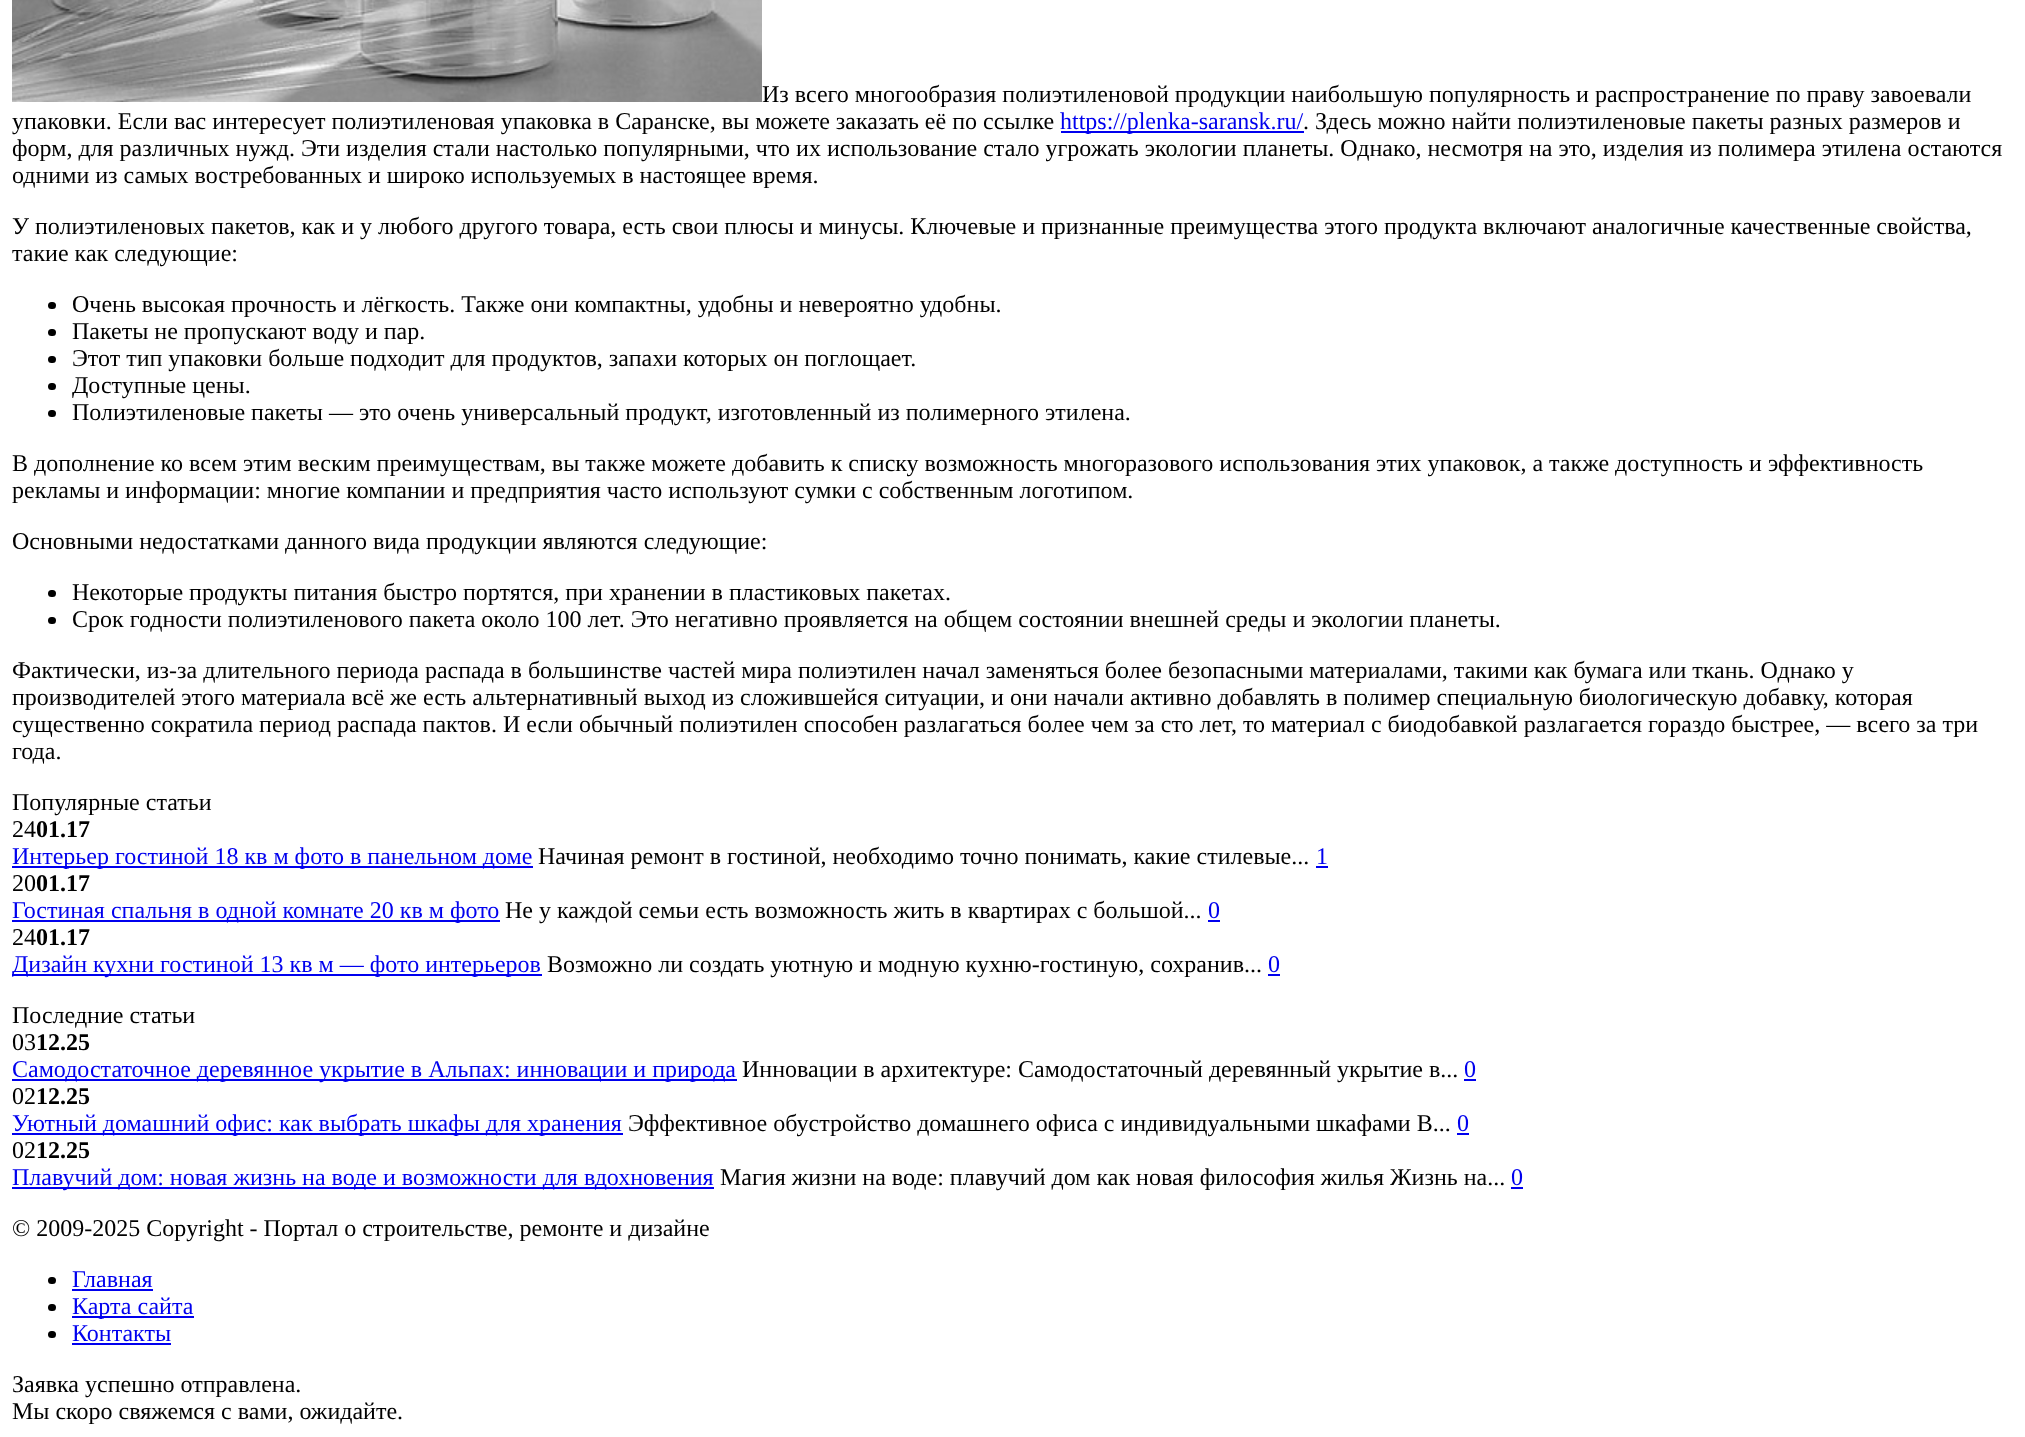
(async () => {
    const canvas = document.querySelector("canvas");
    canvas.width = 2025;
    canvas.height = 1437;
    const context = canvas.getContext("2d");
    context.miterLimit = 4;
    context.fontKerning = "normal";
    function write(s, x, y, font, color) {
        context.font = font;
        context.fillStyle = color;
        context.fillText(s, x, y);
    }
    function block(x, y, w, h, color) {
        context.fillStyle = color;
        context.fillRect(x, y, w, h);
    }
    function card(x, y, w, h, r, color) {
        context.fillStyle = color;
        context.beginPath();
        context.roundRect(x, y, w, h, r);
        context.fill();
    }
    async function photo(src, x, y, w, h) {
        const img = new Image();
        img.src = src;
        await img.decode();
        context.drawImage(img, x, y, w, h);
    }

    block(0, 0, 2025, 1437, "rgb(255, 255, 255)");
    await photo("media/1.png", 12, 0, 750, 102);
    write("Из всего многообразия полиэтиленовой продукции наибольшую популярность и распространение по праву завоевали", 762, 102, "24px Liberation Serif", "rgb(0, 0, 0)");
    write("упаковки. Если вас интересует полиэтиленовая упаковка в Саранске, вы можете заказать её по ссылке", 12, 129, "24px Liberation Serif", "rgb(0, 0, 0)");
    block(1061, 131, 243, 2, "rgb(0, 0, 238)");
    write("https://plenka-saransk.ru/", 1060, 129, "24px Liberation Serif", "rgb(0, 0, 238)");
    write(". Здесь можно найти полиэтиленовые пакеты разных размеров и", 1303, 129, "24px Liberation Serif", "rgb(0, 0, 0)");
    write("форм, для различных нужд. Эти изделия стали настолько популярными, что их использование стало угрожать экологии планеты. Однако, несмотря на это, изделия из полимера этилена остаются", 12, 156, "24px Liberation Serif", "rgb(0, 0, 0)");
    write("одними из самых востребованных и широко используемых в настоящее время.", 12, 183, "24px Liberation Serif", "rgb(0, 0, 0)");
    write("У полиэтиленовых пакетов, как и у любого другого товара, есть свои плюсы и минусы. Ключевые и признанные преимущества этого продукта включают аналогичные качественные свойства,", 12, 234, "24px Liberation Serif", "rgb(0, 0, 0)");
    write("такие как следующие:", 12, 261, "24px Liberation Serif", "rgb(0, 0, 0)");
    card(48, 302, 8, 7, 3.5, "rgb(0, 0, 0)");
    write("Очень высокая прочность и лёгкость. Также они компактны, удобны и невероятно удобны.", 72, 312, "24px Liberation Serif", "rgb(0, 0, 0)");
    card(48, 329, 8, 7, 3.5, "rgb(0, 0, 0)");
    write("Пакеты не пропускают воду и пар.", 72, 339, "24px Liberation Serif", "rgb(0, 0, 0)");
    card(48, 356, 8, 7, 3.5, "rgb(0, 0, 0)");
    write("Этот тип упаковки больше подходит для продуктов, запахи которых он поглощает.", 72, 366, "24px Liberation Serif", "rgb(0, 0, 0)");
    card(48, 383, 8, 7, 3.5, "rgb(0, 0, 0)");
    write("Доступные цены.", 72, 393, "24px Liberation Serif", "rgb(0, 0, 0)");
    card(48, 410, 8, 7, 3.5, "rgb(0, 0, 0)");
    write("Полиэтиленовые пакеты — это очень универсальный продукт, изготовленный из полимерного этилена.", 72, 420, "24px Liberation Serif", "rgb(0, 0, 0)");
    write("В дополнение ко всем этим веским преимуществам, вы также можете добавить к списку возможность многоразового использования этих упаковок, а также доступность и эффективность", 12, 471, "24px Liberation Serif", "rgb(0, 0, 0)");
    write("рекламы и информации: многие компании и предприятия часто используют сумки с собственным логотипом.", 12, 498, "24px Liberation Serif", "rgb(0, 0, 0)");
    write("Основными недостатками данного вида продукции являются следующие:", 12, 549, "24px Liberation Serif", "rgb(0, 0, 0)");
    card(48, 590, 8, 7, 3.5, "rgb(0, 0, 0)");
    write("Некоторые продукты питания быстро портятся, при хранении в пластиковых пакетах.", 72, 600, "24px Liberation Serif", "rgb(0, 0, 0)");
    card(48, 617, 8, 7, 3.5, "rgb(0, 0, 0)");
    write("Срок годности полиэтиленового пакета около 100 лет. Это негативно проявляется на общем состоянии внешней среды и экологии планеты.", 72, 627, "24px Liberation Serif", "rgb(0, 0, 0)");
    write("Фактически, из-за длительного периода распада в большинстве частей мира полиэтилен начал заменяться более безопасными материалами, такими как бумага или ткань. Однако у", 12, 678, "24px Liberation Serif", "rgb(0, 0, 0)");
    write("производителей этого материала всё же есть альтернативный выход из сложившейся ситуации, и они начали активно добавлять в полимер специальную биологическую добавку, которая", 12, 705, "24px Liberation Serif", "rgb(0, 0, 0)");
    write("существенно сократила период распада пактов. И если обычный полиэтилен способен разлагаться более чем за сто лет, то материал с биодобавкой разлагается гораздо быстрее, — всего за три", 12, 732, "24px Liberation Serif", "rgb(0, 0, 0)");
    write("года.", 12, 759, "24px Liberation Serif", "rgb(0, 0, 0)");
    write("Популярные статьи", 12, 810, "24px Liberation Serif", "rgb(0, 0, 0)");
    write("24", 12, 837, "24px Liberation Serif", "rgb(0, 0, 0)");
    write("01.17", 36, 837, "bold 24px Liberation Serif", "rgb(0, 0, 0)");
    block(12, 866, 521, 2, "rgb(0, 0, 238)");
    write("Интерьер гостиной 18 кв м фото в панельном доме", 12, 864, "24px Liberation Serif", "rgb(0, 0, 238)");
    write("Начиная ремонт в гостиной, необходимо точно понимать, какие стилевые...", 538, 864, "24px Liberation Serif", "rgb(0, 0, 0)");
    write("1", 1316, 864, "24px Liberation Serif", "rgb(0, 0, 238)");
    block(1316, 866, 12, 2, "rgb(0, 0, 238)");
    write("20", 12, 891, "24px Liberation Serif", "rgb(0, 0, 0)");
    write("01.17", 36, 891, "bold 24px Liberation Serif", "rgb(0, 0, 0)");
    block(12, 920, 488, 2, "rgb(0, 0, 238)");
    write("Гостиная спальня в одной комнате 20 кв м фото", 12, 918, "24px Liberation Serif", "rgb(0, 0, 238)");
    write("Не у каждой семьи есть возможность жить в квартирах с большой...", 505, 918, "24px Liberation Serif", "rgb(0, 0, 0)");
    write("0", 1208, 918, "24px Liberation Serif", "rgb(0, 0, 238)");
    block(1208, 920, 12, 2, "rgb(0, 0, 238)");
    write("24", 12, 945, "24px Liberation Serif", "rgb(0, 0, 0)");
    write("01.17", 36, 945, "bold 24px Liberation Serif", "rgb(0, 0, 0)");
    block(12, 974, 530, 2, "rgb(0, 0, 238)");
    write("Дизайн кухни гостиной 13 кв м — фото интерьеров", 12, 972, "24px Liberation Serif", "rgb(0, 0, 238)");
    write("Возможно ли создать уютную и модную кухню-гостиную, сохранив...", 547, 972, "24px Liberation Serif", "rgb(0, 0, 0)");
    write("0", 1268, 972, "24px Liberation Serif", "rgb(0, 0, 238)");
    block(1268, 974, 12, 2, "rgb(0, 0, 238)");
    write("Последние статьи", 12, 1023, "24px Liberation Serif", "rgb(0, 0, 0)");
    write("03", 12, 1050, "24px Liberation Serif", "rgb(0, 0, 0)");
    write("12.25", 36, 1050, "bold 24px Liberation Serif", "rgb(0, 0, 0)");
    block(12, 1079, 725, 2, "rgb(0, 0, 238)");
    write("Самодостаточное деревянное укрытие в Альпах: инновации и природа", 12, 1077, "24px Liberation Serif", "rgb(0, 0, 238)");
    write("Инновации в архитектуре: Самодостаточный деревянный укрытие в...", 742, 1077, "24px Liberation Serif", "rgb(0, 0, 0)");
    write("0", 1464, 1077, "24px Liberation Serif", "rgb(0, 0, 238)");
    block(1464, 1079, 12, 2, "rgb(0, 0, 238)");
    write("02", 12, 1104, "24px Liberation Serif", "rgb(0, 0, 0)");
    write("12.25", 36, 1104, "bold 24px Liberation Serif", "rgb(0, 0, 0)");
    block(12, 1133, 611, 2, "rgb(0, 0, 238)");
    write("Уютный домашний офис: как выбрать шкафы для хранения", 12, 1131, "24px Liberation Serif", "rgb(0, 0, 238)");
    write("Эффективное обустройство домашнего офиса с индивидуальными шкафами В...", 628, 1131, "24px Liberation Serif", "rgb(0, 0, 0)");
    write("0", 1457, 1131, "24px Liberation Serif", "rgb(0, 0, 238)");
    block(1457, 1133, 12, 2, "rgb(0, 0, 238)");
    write("02", 12, 1158, "24px Liberation Serif", "rgb(0, 0, 0)");
    write("12.25", 36, 1158, "bold 24px Liberation Serif", "rgb(0, 0, 0)");
    block(12, 1187, 702, 2, "rgb(0, 0, 238)");
    write("Плавучий дом: новая жизнь на воде и возможности для вдохновения", 12, 1185, "24px Liberation Serif", "rgb(0, 0, 238)");
    write("Магия жизни на воде: плавучий дом как новая философия жилья Жизнь на...", 720, 1185, "24px Liberation Serif", "rgb(0, 0, 0)");
    write("0", 1511, 1185, "24px Liberation Serif", "rgb(0, 0, 238)");
    block(1511, 1187, 12, 2, "rgb(0, 0, 238)");
    write("© 2009-2025 Copyright - Портал о строительстве, ремонте и дизайне", 12, 1236, "24px Liberation Serif", "rgb(0, 0, 0)");
    card(48, 1277, 8, 7, 3.5, "rgb(0, 0, 0)");
    write("Главная", 72, 1287, "24px Liberation Serif", "rgb(0, 0, 238)");
    block(72, 1289, 81, 2, "rgb(0, 0, 238)");
    card(48, 1304, 8, 7, 3.5, "rgb(0, 0, 0)");
    block(72, 1316, 122, 2, "rgb(0, 0, 238)");
    write("Карта сайта", 72, 1314, "24px Liberation Serif", "rgb(0, 0, 238)");
    card(48, 1331, 8, 7, 3.5, "rgb(0, 0, 0)");
    write("Контакты", 72, 1341, "24px Liberation Serif", "rgb(0, 0, 238)");
    block(72, 1343, 99, 2, "rgb(0, 0, 238)");
    write("Заявка успешно отправлена.", 12, 1392, "24px Liberation Serif", "rgb(0, 0, 0)");
    write("Мы скоро свяжемся с вами, ожидайте.", 12, 1419, "24px Liberation Serif", "rgb(0, 0, 0)");
})();
